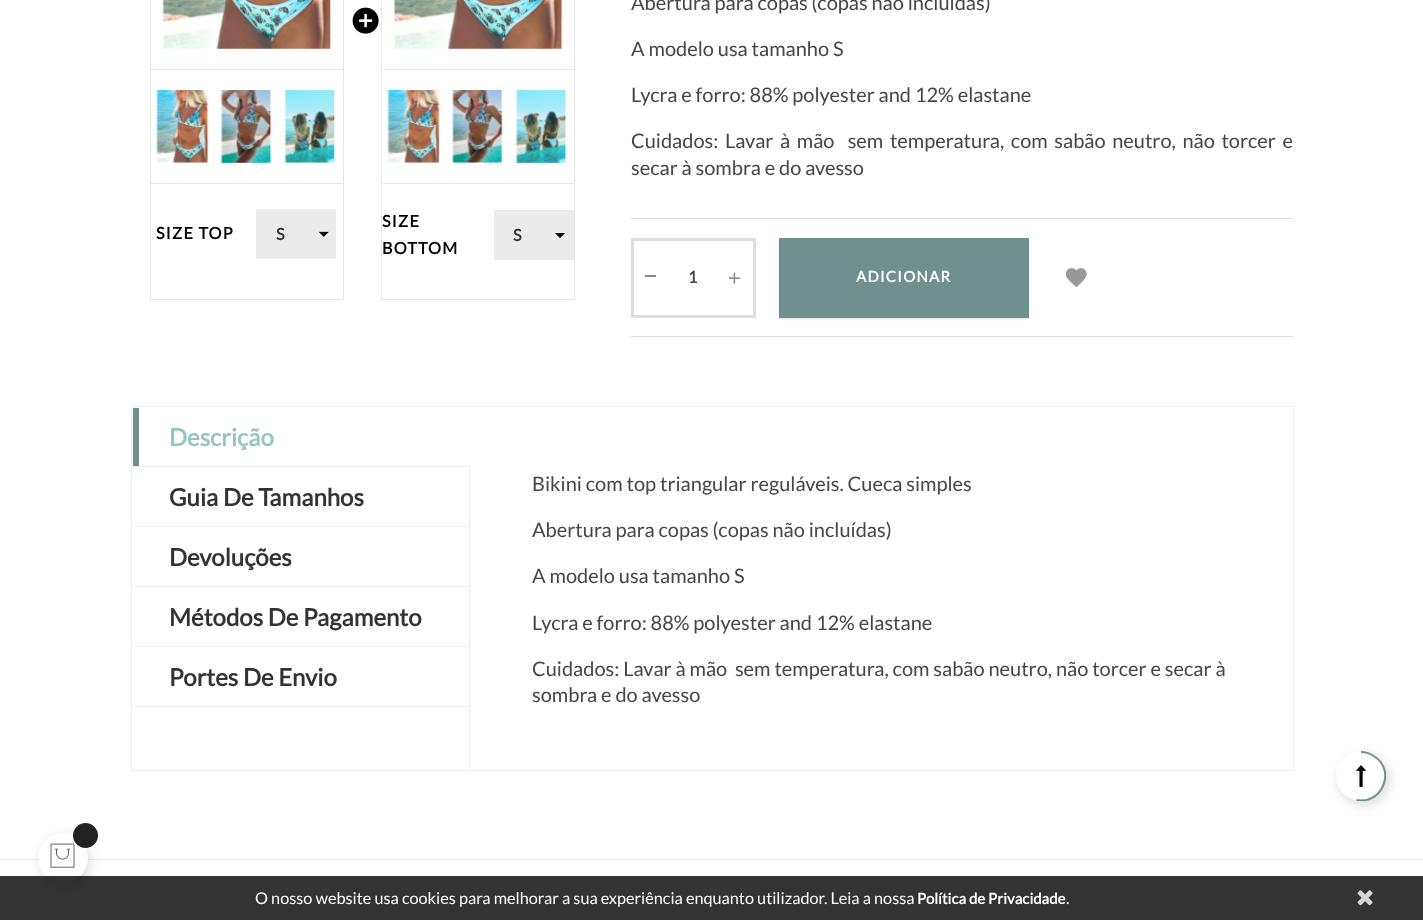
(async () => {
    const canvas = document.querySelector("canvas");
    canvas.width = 1423;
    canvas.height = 920;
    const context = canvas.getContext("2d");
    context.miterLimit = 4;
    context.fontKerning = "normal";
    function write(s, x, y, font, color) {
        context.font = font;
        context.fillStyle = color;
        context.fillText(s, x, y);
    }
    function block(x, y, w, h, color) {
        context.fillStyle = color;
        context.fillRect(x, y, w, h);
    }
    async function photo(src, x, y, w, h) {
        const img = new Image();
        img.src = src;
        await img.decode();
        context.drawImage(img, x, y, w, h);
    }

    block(0, 0, 1423, 920, "rgb(255, 255, 255)");
    block(0, 859, 1423, 1, "rgb(234, 234, 234)");
    context.fillStyle = "rgba(0, 0, 0, 0.15)";
    context.filter = "blur(6px)";
    context.beginPath();
    context.roundRect(40, 836, 50, 50, 25);
    context.fill();
    context.filter = "none";
    context.fillStyle = "rgb(255, 255, 255)";
    context.beginPath();
    context.arc(63, 858, 25, 0, Math.PI * 2);
    context.fill();
    await photo("media/1.png", 50, 843, 25, 25);
    context.beginPath();
    context.arc(85, 835, 13.5, 0, Math.PI * 2);
    context.strokeStyle = "rgb(255, 255, 255)";
    context.stroke();
    context.fillStyle = "rgb(34, 34, 34)";
    context.beginPath();
    context.arc(85.5, 835.5, 12.5, 0, Math.PI * 2);
    context.fill();
    context.strokeStyle = "rgb(230, 230, 230)";
    context.strokeRect(150.5, -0.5, 193, 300);
    await photo("media/2.png", 162, 0, 169, 49);
    block(151, 69, 192, 1, "rgb(230, 230, 230)");
    await photo("media/3.png", 156, 90, 53, 73);
    await photo("media/4.png", 220, 90, 52, 73);
    await photo("media/5.png", 284, 90, 51, 73);
    block(151, 183, 192, 1, "rgb(230, 230, 230)");
    context.letterSpacing = "1.25px";
    write("SIZE TOP", 156, 239, "bold 16.25px Lato", "rgb(0, 0, 0)");
    block(256, 209, 80, 50, "rgb(235, 235, 235)");
    await photo("media/6.png", 318, 231, 11, 6);
    context.letterSpacing = "0px";
    write("S", 276, 240, "bold 16.25px Lato", "rgb(51, 51, 51)");
    context.strokeRect(381.5, -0.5, 193, 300);
    await photo("media/7.png", 394, 0, 169, 49);
    block(383, 69, 191, 1, "rgb(230, 230, 230)");
    await photo("media/8.png", 352, 7, 27, 27);
    await photo("media/9.png", 387, 90, 53, 73);
    await photo("media/10.png", 451, 90, 52, 73);
    await photo("media/11.png", 515, 90, 52, 73);
    block(383, 183, 191, 1, "rgb(230, 230, 230)");
    context.letterSpacing = "1.25px";
    write("SIZE", 382, 227, "bold 16.25px Lato", "rgb(0, 0, 0)");
    write("BOTTOM", 382, 254, "bold 16.25px Lato", "rgb(0, 0, 0)");
    block(494, 210, 80, 50, "rgb(235, 235, 235)");
    await photo("media/12.png", 555, 233, 10, 5);
    context.letterSpacing = "0px";
    write("S", 513, 241, "bold 16.25px Lato", "rgb(51, 51, 51)");
    write("Abertura para copas (copas não incluídas)", 631, 10, "20px Lato", "rgb(70, 70, 70)");
    write("A modelo usa tamanho S", 631, 56, "20px Lato", "rgb(70, 70, 70)");
    write("Lycra e forro: 88% polyester and 12% elastane", 631, 102, "20px Lato", "rgb(70, 70, 70)");
    context.wordSpacing = "2.75px";
    write("Cuidados: Lavar à mão  sem temperatura, com sabão neutro, não torcer e", 631, 148, "20px Lato", "rgb(70, 70, 70)");
    context.wordSpacing = "0px";
    write("secar à sombra e do avesso", 631, 175, "20px Lato", "rgb(70, 70, 70)");
    block(631, 218, 662, 1, "rgb(221, 221, 221)");
    block(631, 336, 662, 1, "rgb(221, 221, 221)");
    context.strokeStyle = "rgb(221, 221, 221)";
    context.lineWidth = 3;
    context.strokeRect(632.5, 239.5, 122, 77);
    write("1", 688, 283, "bold 16.25px Lato", "rgb(70, 70, 70)");
    block(645, 275, 11, 2, "rgb(136, 136, 136)");
    await photo("media/13.png", 728, 272, 12, 12);
    context.fillStyle = "rgba(0, 0, 0, 0.15)";
    context.filter = "blur(1px)";
    context.beginPath();
    context.rect(779, 239, 250, 80);
    context.fill();
    context.filter = "none";
    block(779, 238, 250, 80, "rgb(112, 144, 141)");
    context.letterSpacing = "1.25px";
    write("ADICIONAR", 856, 282, "bold 15px Lato", "rgb(255, 255, 255)");
    await photo("media/14.png", 1065, 268, 22, 20);
    context.strokeStyle = "rgb(239, 239, 239)";
    context.lineWidth = 1;
    context.strokeRect(131.5, 406.5, 1162, 364);
    block(469, 467, 1, 303, "rgb(239, 239, 239)");
    block(133, 466, 337, 1, "rgb(239, 239, 239)");
    block(133, 408, 6, 58, "rgb(112, 144, 141)");
    context.letterSpacing = "0px";
    write("Descrição", 169, 446, "bold 24px Lato", "rgb(148, 197, 191)");
    block(133, 526, 337, 1, "rgb(239, 239, 239)");
    write("Guia De Tamanhos", 169, 506, "bold 24px Lato", "rgb(51, 51, 51)");
    block(133, 586, 337, 1, "rgb(239, 239, 239)");
    write("Devoluções", 169, 566, "bold 24px Lato", "rgb(51, 51, 51)");
    block(133, 646, 337, 1, "rgb(239, 239, 239)");
    write("Métodos De Pagamento", 169, 626, "bold 24px Lato", "rgb(51, 51, 51)");
    block(133, 706, 337, 1, "rgb(239, 239, 239)");
    write("Portes De Envio", 169, 686, "bold 24px Lato", "rgb(51, 51, 51)");
    write("Bikini com top triangular reguláveis. Cueca simples", 532, 491, "20px Lato", "rgb(70, 70, 70)");
    write("Abertura para copas (copas não incluídas)", 532, 537, "20px Lato", "rgb(70, 70, 70)");
    write("A modelo usa tamanho S", 532, 583, "20px Lato", "rgb(70, 70, 70)");
    write("Lycra e forro: 88% polyester and 12% elastane", 532, 630, "20px Lato", "rgb(70, 70, 70)");
    write("Cuidados: Lavar à mão  sem temperatura, com sabão neutro, não torcer e secar à", 532, 676, "20px Lato", "rgb(70, 70, 70)");
    write("sombra e do avesso", 532, 702, "20px Lato", "rgb(70, 70, 70)");
    context.fillStyle = "rgba(0, 0, 0, 0.15)";
    context.filter = "blur(6px)";
    context.beginPath();
    context.roundRect(1339, 755, 50, 50, 25);
    context.fill();
    context.filter = "none";
    context.fillStyle = "rgb(255, 255, 255)";
    context.beginPath();
    context.arc(1361, 776, 25, 0, Math.PI * 2);
    context.fill();
    context.save();
    context.beginPath();
    context.rect(1336, 751, 50, 50);
    context.clip();
    context.beginPath();
    context.moveTo(1361, 752);
    context.bezierCurveTo(1366, 752, 1370.5, 753.5, 1374.5, 756.5);
    context.bezierCurveTo(1396.5, 771, 1381.5, 805, 1356.5, 800);
    context.strokeStyle = "rgb(112, 144, 141)";
    context.lineWidth = 2;
    context.stroke();
    context.restore();
    await photo("media/15.png", 1356, 765, 10, 22);
    block(0, 876, 1423, 44, "rgba(0, 0, 0, 0.8)");
    write("O nosso website usa cookies para melhorar a sua experiência enquanto utilizador. Leia a nossa", 255, 904, "16.25px Lato", "rgb(255, 255, 255)");
    write("Política de Privacidade", 917, 904, "bold 15px Lato", "rgb(255, 255, 255)");
    write(".", 1066, 904, "16.25px Lato", "rgb(255, 255, 255)");
    await photo("media/16.png", 1357, 890, 16, 16);
})();
